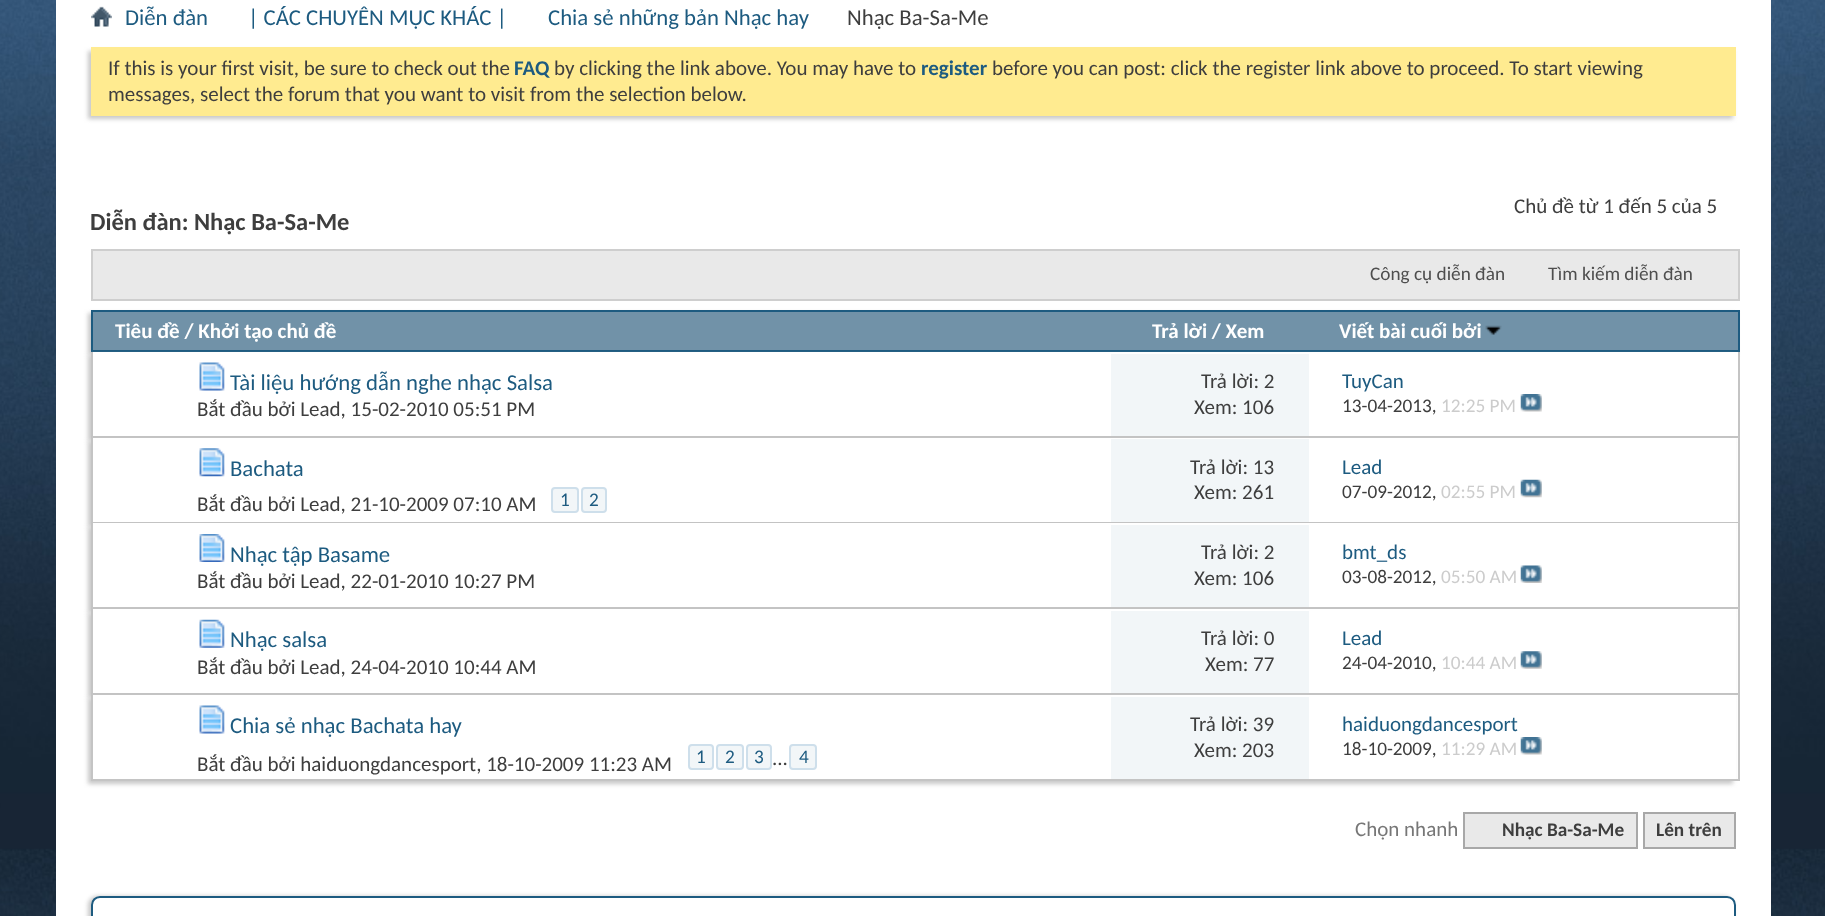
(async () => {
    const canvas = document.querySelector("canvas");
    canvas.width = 1825;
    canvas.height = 916;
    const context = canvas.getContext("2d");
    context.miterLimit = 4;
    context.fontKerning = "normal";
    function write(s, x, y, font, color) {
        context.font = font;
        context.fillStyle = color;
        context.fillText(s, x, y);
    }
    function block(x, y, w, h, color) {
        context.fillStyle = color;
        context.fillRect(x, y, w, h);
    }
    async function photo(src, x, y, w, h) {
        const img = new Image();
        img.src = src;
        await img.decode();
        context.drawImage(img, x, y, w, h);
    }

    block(0, 0, 1825, 916, "rgb(255, 255, 255)");
    await photo("media/1.png", 0, 0, 1825, 916);
    block(56, 0, 1715, 916, "rgb(255, 255, 255)");
    await photo("media/2.png", 91, 6, 21, 21);
    write("Diễn đàn", 125, 25, "22.75px Carlito", "rgb(29, 91, 128)");
    write("| CÁC CHUYÊN MỤC KHÁC |", 248, 25, "22.75px Carlito", "rgb(29, 91, 128)");
    write("Chia sẻ những bản Nhạc hay", 548, 25, "22.75px Carlito", "rgb(29, 91, 128)");
    write("Nhạc Ba-Sa-Me", 847, 25, "22.75px Carlito", "rgb(62, 62, 62)");
    context.fillStyle = "rgb(200, 200, 200)";
    context.filter = "blur(2px)";
    context.beginPath();
    context.rect(88, 51, 1645, 68);
    context.fill();
    context.filter = "none";
    block(91, 47, 1645, 69, "rgb(255, 235, 144)");
    write("If this is your first visit, be sure to check out the", 108, 75, "21px Carlito", "rgb(62, 62, 62)");
    write("FAQ", 514, 75, "bold 21px Carlito", "rgb(29, 91, 128)");
    write("by clicking the link above. You may have to", 554, 75, "21px Carlito", "rgb(62, 62, 62)");
    write("register", 921, 75, "bold 21px Carlito", "rgb(29, 91, 128)");
    write("before you can post: click the register link above to proceed. To start viewing", 992, 75, "21px Carlito", "rgb(62, 62, 62)");
    write("messages, select the forum that you want to visit from the selection below.", 108, 101, "21px Carlito", "rgb(62, 62, 62)");
    write("Chủ đề từ 1 đến 5 của 5", 1514, 213, "21px Carlito", "rgb(62, 62, 62)");
    write("Diễn đàn: Nhạc Ba-Sa-Me", 90, 230, "bold 24.5px Carlito", "rgb(62, 62, 62)");
    context.fillStyle = "rgb(233, 233, 233)";
    context.beginPath();
    context.rect(92, 250, 1647, 50);
    context.fill();
    context.strokeStyle = "rgb(206, 206, 206)";
    context.lineWidth = 2;
    context.stroke();
    write("Công cụ diễn đàn", 1370, 280, "19.25px Carlito", "rgb(78, 78, 78)");
    write("Tìm kiếm diễn đàn", 1548, 280, "19.25px Carlito", "rgb(78, 78, 78)");
    context.fillStyle = "rgb(200, 200, 200)";
    context.filter = "blur(2px)";
    context.beginPath();
    context.rect(88, 313, 1648, 42);
    context.fill();
    context.filter = "none";
    context.fillStyle = "rgb(113, 146, 168)";
    context.beginPath();
    context.rect(92, 311, 1647, 40);
    context.fill();
    context.strokeStyle = "rgb(29, 91, 128)";
    context.stroke();
    write("Tiêu đề / Khởi tạo chủ đề", 115, 338, "bold 21px Carlito", "rgb(255, 255, 255)");
    write("Trả lời / Xem", 1152, 338, "bold 21px Carlito", "rgb(255, 255, 255)");
    write("Viết bài cuối bởi", 1339, 338, "bold 21px Carlito", "rgb(255, 255, 255)");
    await photo("media/3.png", 1485, 325, 17, 10);
    context.fillStyle = "rgb(200, 200, 200)";
    context.filter = "blur(2px)";
    context.beginPath();
    context.rect(88, 355, 1645, 86);
    context.fill();
    context.filter = "none";
    block(93, 352, 1645, 84, "rgb(255, 255, 255)");
    block(1738, 352, 2, 86, "rgb(196, 196, 196)");
    block(91, 436, 1649, 2, "rgb(196, 196, 196)");
    block(91, 352, 2, 86, "rgb(196, 196, 196)");
    await photo("media/4.png", 199, 362, 26, 29);
    write("Tài liệu hướng dẫn nghe nhạc Salsa", 230, 390, "22.75px Carlito", "rgb(29, 91, 128)");
    write("Bắt đầu bởi Lead, 15-02-2010 05:51 PM", 197, 416, "21px Carlito", "rgb(62, 62, 62)");
    block(1111, 354, 198, 82, "rgb(242, 246, 248)");
    write("Trả lời: 2", 1201, 388, "21px Carlito", "rgb(62, 62, 62)");
    write("Xem: 106", 1194, 414, "21px Carlito", "rgb(62, 62, 62)");
    write("TuyCan", 1342, 388, "21px Carlito", "rgb(29, 91, 128)");
    write("13-04-2013,", 1342, 412, "19.25px Carlito", "rgb(62, 62, 62)");
    write("12:25 PM", 1441, 412, "19.25px Carlito", "rgb(204, 204, 204)");
    await photo("media/5.png", 1520, 394, 22, 18);
    context.fillStyle = "rgb(200, 200, 200)";
    context.filter = "blur(2px)";
    context.beginPath();
    context.rect(88, 441, 1645, 86);
    context.fill();
    context.filter = "none";
    block(93, 438, 1643, 84, "rgb(255, 255, 255)");
    block(1738, 438, 2, 85, "rgb(196, 196, 196)");
    block(91, 522, 1649, 1, "rgb(196, 196, 196)");
    block(91, 438, 2, 85, "rgb(196, 196, 196)");
    await photo("media/6.png", 199, 448, 26, 29);
    write("Bachata", 230, 476, "22.75px Carlito", "rgb(29, 91, 128)");
    write("Bắt đầu bởi Lead, 21-10-2009 07:10 AM", 197, 511, "21px Carlito", "rgb(62, 62, 62)");
    context.fillStyle = "rgb(242, 246, 248)";
    context.beginPath();
    context.roundRect(552, 488, 26, 24, 3);
    context.fill();
    context.strokeStyle = "rgb(206, 223, 235)";
    context.stroke();
    write("1", 560, 506, "19.25px Carlito", "rgb(29, 91, 128)");
    context.fillStyle = "rgb(242, 246, 248)";
    context.beginPath();
    context.roundRect(582, 488, 24, 24, 3);
    context.fill();
    context.stroke();
    write("2", 589, 506, "19.25px Carlito", "rgb(29, 91, 128)");
    block(1111, 439, 198, 83, "rgb(242, 246, 248)");
    write("Trả lời: 13", 1190, 474, "21px Carlito", "rgb(62, 62, 62)");
    write("Xem: 261", 1194, 499, "21px Carlito", "rgb(62, 62, 62)");
    write("Lead", 1342, 474, "21px Carlito", "rgb(29, 91, 128)");
    write("07-09-2012,", 1342, 498, "19.25px Carlito", "rgb(62, 62, 62)");
    write("02:55 PM", 1441, 498, "19.25px Carlito", "rgb(204, 204, 204)");
    await photo("media/7.png", 1520, 479, 22, 19);
    context.fillStyle = "rgb(200, 200, 200)";
    context.filter = "blur(2px)";
    context.beginPath();
    context.rect(88, 527, 1645, 86);
    context.fill();
    context.filter = "none";
    block(93, 523, 1643, 84, "rgb(255, 255, 255)");
    block(1738, 523, 2, 86, "rgb(196, 196, 196)");
    block(91, 607, 1649, 2, "rgb(196, 196, 196)");
    block(91, 523, 2, 86, "rgb(196, 196, 196)");
    await photo("media/8.png", 199, 534, 26, 28);
    write("Nhạc tập Basame", 230, 562, "22.75px Carlito", "rgb(29, 91, 128)");
    write("Bắt đầu bởi Lead, 22-01-2010 10:27 PM", 197, 588, "21px Carlito", "rgb(62, 62, 62)");
    block(1111, 525, 198, 82, "rgb(242, 246, 248)");
    write("Trả lời: 2", 1201, 559, "21px Carlito", "rgb(62, 62, 62)");
    write("Xem: 106", 1194, 585, "21px Carlito", "rgb(62, 62, 62)");
    write("bmt_ds", 1342, 559, "21px Carlito", "rgb(29, 91, 128)");
    write("03-08-2012,", 1342, 583, "19.25px Carlito", "rgb(62, 62, 62)");
    write("05:50 AM", 1441, 583, "19.25px Carlito", "rgb(204, 204, 204)");
    await photo("media/9.png", 1520, 565, 22, 18);
    context.fillStyle = "rgb(200, 200, 200)";
    context.filter = "blur(2px)";
    context.beginPath();
    context.rect(88, 613, 1645, 85);
    context.fill();
    context.filter = "none";
    block(93, 609, 1643, 84, "rgb(255, 255, 255)");
    block(1738, 609, 2, 86, "rgb(196, 196, 196)");
    block(91, 693, 1649, 2, "rgb(196, 196, 196)");
    block(91, 609, 2, 86, "rgb(196, 196, 196)");
    await photo("media/10.png", 199, 619, 26, 29);
    write("Nhạc salsa", 230, 647, "22.75px Carlito", "rgb(29, 91, 128)");
    write("Bắt đầu bởi Lead, 24-04-2010 10:44 AM", 197, 674, "21px Carlito", "rgb(62, 62, 62)");
    block(1111, 611, 198, 82, "rgb(242, 246, 248)");
    write("Trả lời: 0", 1201, 645, "21px Carlito", "rgb(62, 62, 62)");
    write("Xem: 77", 1205, 671, "21px Carlito", "rgb(62, 62, 62)");
    write("Lead", 1342, 645, "21px Carlito", "rgb(29, 91, 128)");
    write("24-04-2010,", 1342, 669, "19.25px Carlito", "rgb(62, 62, 62)");
    write("10:44 AM", 1441, 669, "19.25px Carlito", "rgb(204, 204, 204)");
    await photo("media/11.png", 1520, 651, 22, 18);
    context.fillStyle = "rgb(200, 200, 200)";
    context.filter = "blur(2px)";
    context.beginPath();
    context.rect(88, 698, 1645, 86);
    context.fill();
    context.filter = "none";
    block(93, 695, 1643, 84, "rgb(255, 255, 255)");
    block(1738, 695, 2, 86, "rgb(196, 196, 196)");
    block(91, 779, 1649, 2, "rgb(196, 196, 196)");
    block(91, 695, 2, 86, "rgb(196, 196, 196)");
    await photo("media/4.png", 199, 705, 26, 29);
    write("Chia sẻ nhạc Bachata hay", 230, 733, "22.75px Carlito", "rgb(29, 91, 128)");
    write("Bắt đầu bởi haiduongdancesport, 18-10-2009 11:23 AM", 197, 771, "21px Carlito", "rgb(62, 62, 62)");
    context.fillStyle = "rgb(242, 246, 248)";
    context.beginPath();
    context.roundRect(689, 745, 24, 24, 3);
    context.fill();
    context.stroke();
    write("1", 696, 763, "19.25px Carlito", "rgb(29, 91, 128)");
    context.fillStyle = "rgb(242, 246, 248)";
    context.beginPath();
    context.roundRect(717, 745, 26, 24, 3);
    context.fill();
    context.stroke();
    write("2", 725, 763, "19.25px Carlito", "rgb(29, 91, 128)");
    context.fillStyle = "rgb(242, 246, 248)";
    context.beginPath();
    context.roundRect(747, 745, 24, 24, 3);
    context.fill();
    context.stroke();
    write("3", 754, 763, "19.25px Carlito", "rgb(29, 91, 128)");
    context.fillStyle = "rgb(242, 246, 248)";
    context.beginPath();
    context.roundRect(790, 745, 26, 24, 3);
    context.fill();
    context.stroke();
    write("4", 799, 763, "19.25px Carlito", "rgb(29, 91, 128)");
    write("...", 772, 765, "21px Carlito", "rgb(62, 62, 62)");
    block(1111, 697, 198, 82, "rgb(242, 246, 248)");
    write("Trả lời: 39", 1190, 731, "21px Carlito", "rgb(62, 62, 62)");
    write("Xem: 203", 1194, 757, "21px Carlito", "rgb(62, 62, 62)");
    write("haiduongdancesport", 1342, 731, "21px Carlito", "rgb(29, 91, 128)");
    write("18-10-2009,", 1342, 755, "19.25px Carlito", "rgb(62, 62, 62)");
    write("11:29 AM", 1441, 755, "19.25px Carlito", "rgb(204, 204, 204)");
    await photo("media/5.png", 1520, 737, 22, 18);
    write("Chọn nhanh", 1355, 836, "21px Carlito", "rgb(119, 119, 119)");
    context.fillStyle = "rgb(233, 233, 233)";
    context.beginPath();
    context.rect(1464, 813, 173, 35);
    context.fill();
    context.strokeStyle = "rgb(168, 168, 168)";
    context.stroke();
    write("Nhạc Ba-Sa-Me", 1502, 836, "bold 19.25px Carlito", "rgb(62, 62, 62)");
    context.fillStyle = "rgb(233, 233, 233)";
    context.beginPath();
    context.rect(1644, 813, 91, 35);
    context.fill();
    context.stroke();
    write("Lên trên", 1656, 836, "bold 19.25px Carlito", "rgb(62, 62, 62)");
    context.fillStyle = "rgb(200, 200, 200)";
    context.filter = "blur(2px)";
    context.beginPath();
    context.roundRect(88, 896, 1645, 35, 9);
    context.fill();
    context.filter = "none";
    context.fillStyle = "rgb(255, 255, 255)";
    context.beginPath();
    context.moveTo(100, 897);
    context.lineTo(1727, 897);
    context.bezierCurveTo(1731.5, 897, 1735, 900.5, 1735, 905);
    context.lineTo(1735, 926);
    context.lineTo(92, 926);
    context.lineTo(92, 905);
    context.bezierCurveTo(92, 900.5, 95.5, 897, 100, 897);
    context.closePath();
    context.fill();
    context.strokeStyle = "rgb(29, 91, 128)";
    context.stroke();
})();
